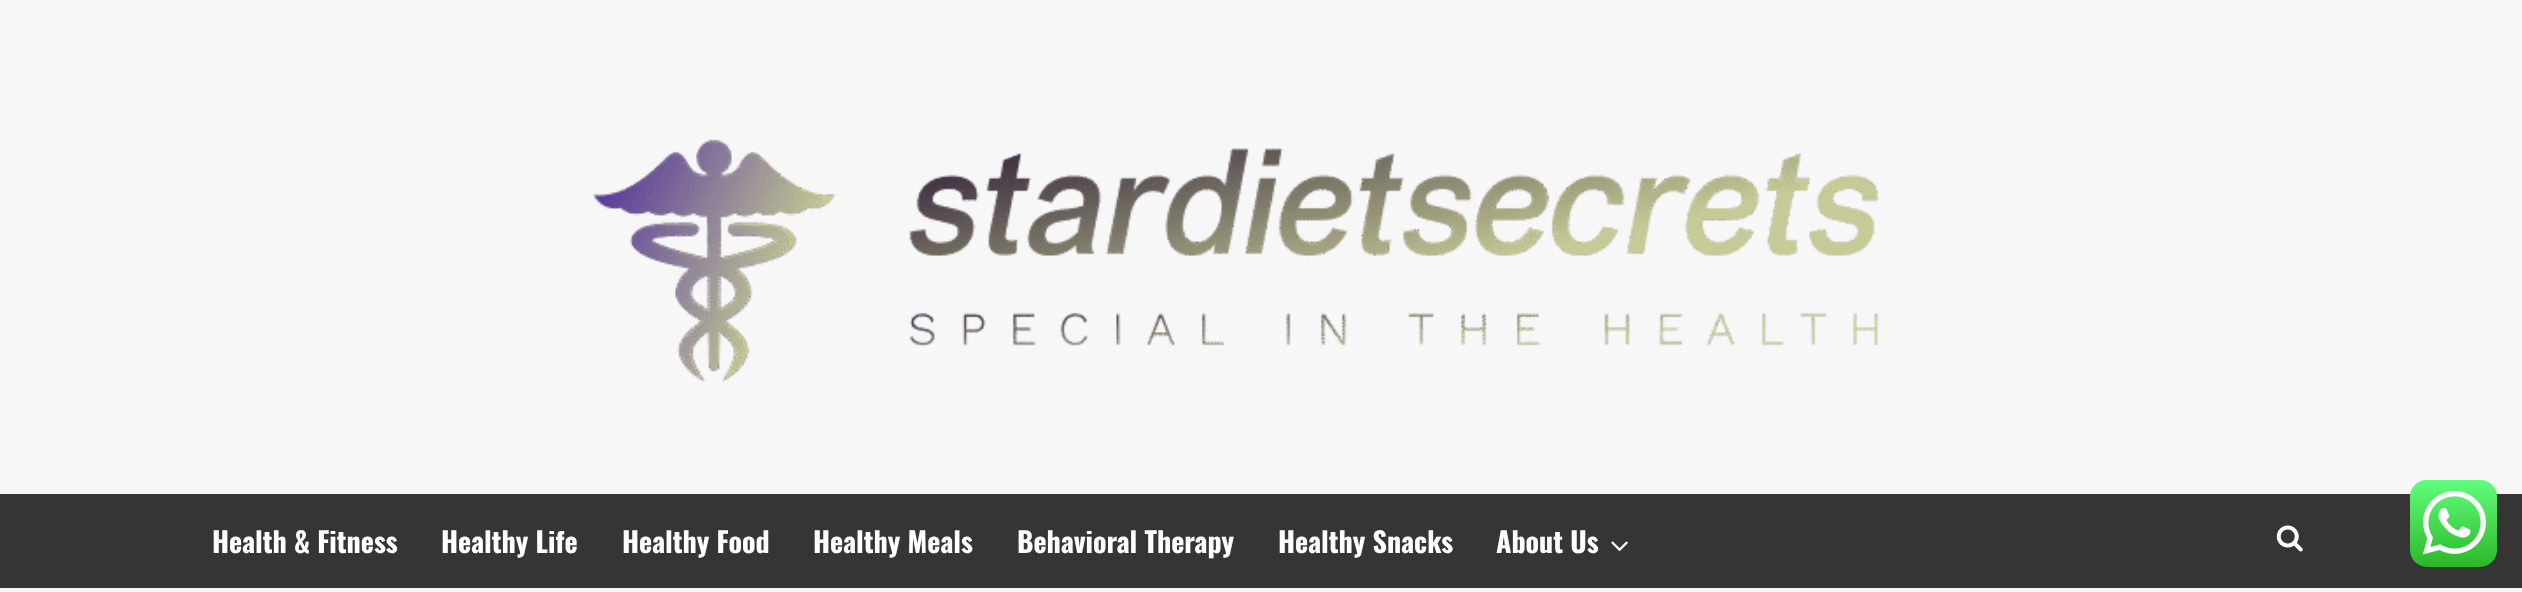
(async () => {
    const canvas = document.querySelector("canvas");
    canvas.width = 2522;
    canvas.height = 592;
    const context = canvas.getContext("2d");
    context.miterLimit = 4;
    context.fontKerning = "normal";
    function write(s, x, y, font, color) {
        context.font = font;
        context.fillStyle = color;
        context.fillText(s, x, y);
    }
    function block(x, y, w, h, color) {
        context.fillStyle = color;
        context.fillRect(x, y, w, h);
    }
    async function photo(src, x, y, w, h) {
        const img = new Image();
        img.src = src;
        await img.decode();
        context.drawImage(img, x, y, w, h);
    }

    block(0, 0, 2522, 592, "rgb(247, 247, 247)");
    await photo("media/1.png", 593, 139, 1286, 243);
    block(0, 494, 2522, 94, "rgb(53, 53, 53)");
    write("Health & Fitness", 212, 553, "bold 28px Oswald", "rgb(255, 255, 255)");
    write("Healthy Life", 441, 553, "bold 28px Oswald", "rgb(255, 255, 255)");
    write("Healthy Food", 622, 553, "bold 28px Oswald", "rgb(255, 255, 255)");
    write("Healthy Meals", 813, 553, "bold 28px Oswald", "rgb(255, 255, 255)");
    write("Behavioral Therapy", 1017, 553, "bold 28px Oswald", "rgb(255, 255, 255)");
    write("Healthy Snacks", 1278, 553, "bold 28px Oswald", "rgb(255, 255, 255)");
    write("About Us", 1496, 553, "bold 28px Oswald", "rgb(255, 255, 255)");
    await photo("media/2.png", 1611, 541, 17, 11);
    await photo("media/3.png", 2276, 525, 27, 27);
    await photo("media/4.png", 2410, 480, 87, 87);
})();
